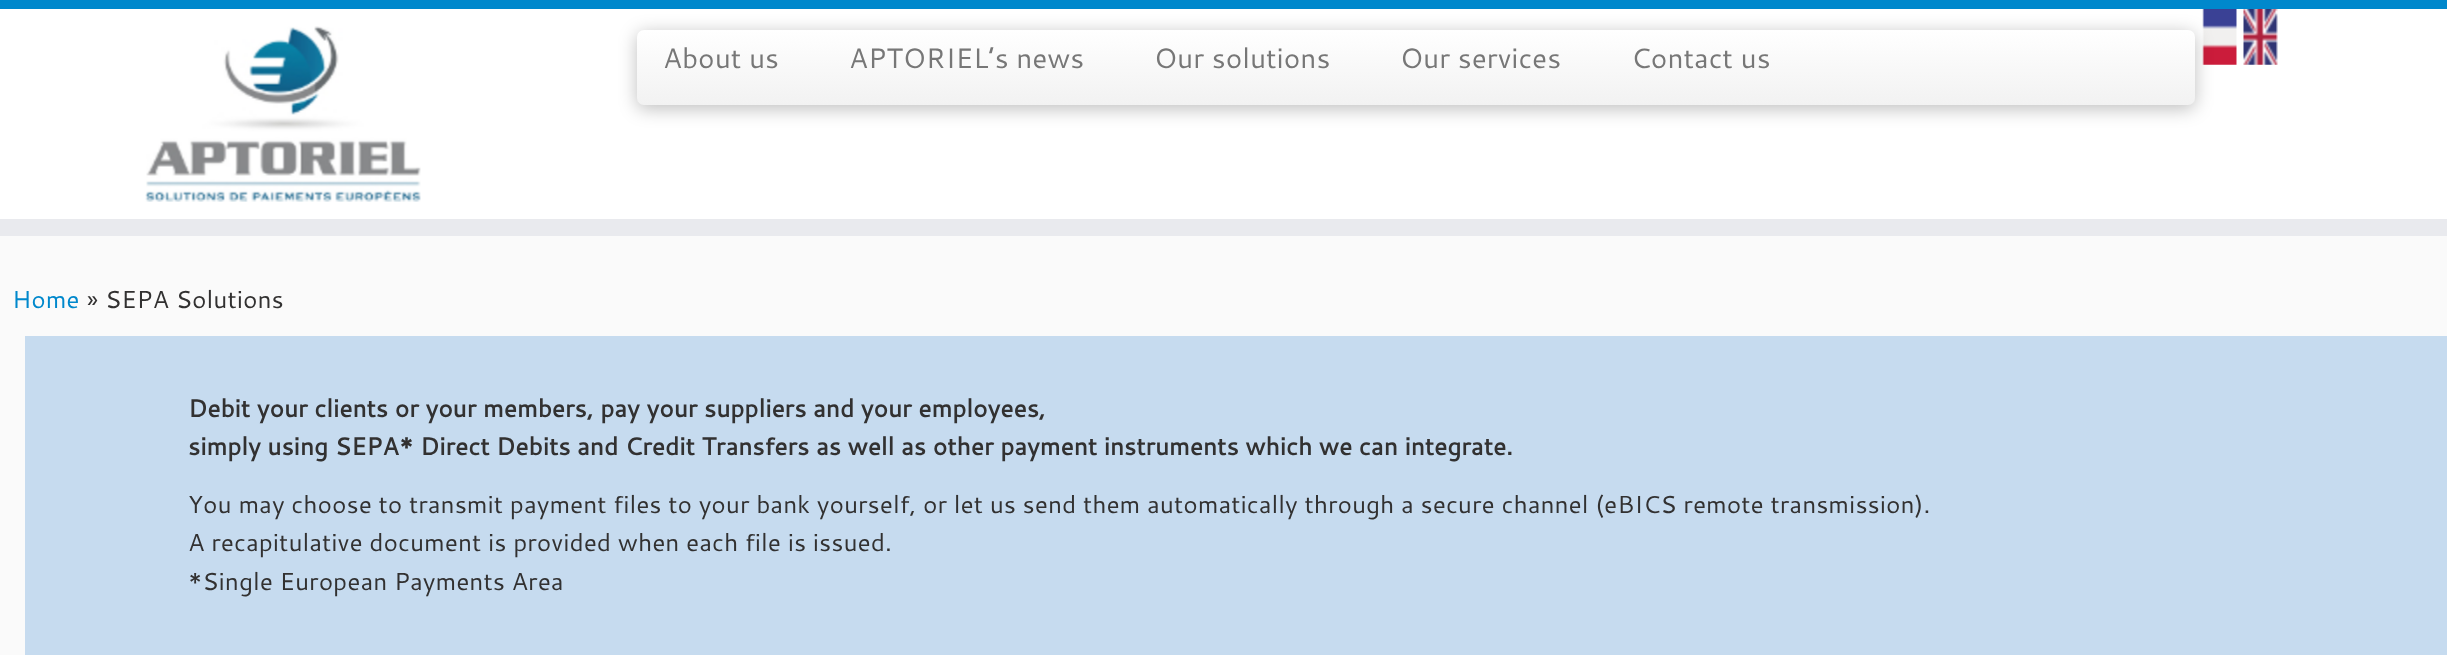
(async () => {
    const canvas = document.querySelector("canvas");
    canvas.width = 2447;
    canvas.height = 655;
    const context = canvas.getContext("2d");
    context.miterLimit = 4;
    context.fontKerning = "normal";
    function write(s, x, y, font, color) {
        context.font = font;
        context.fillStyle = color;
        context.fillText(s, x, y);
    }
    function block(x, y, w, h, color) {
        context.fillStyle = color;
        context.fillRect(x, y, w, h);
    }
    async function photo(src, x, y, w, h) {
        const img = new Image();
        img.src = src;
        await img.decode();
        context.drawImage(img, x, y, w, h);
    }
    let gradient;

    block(0, 0, 2447, 655, "rgb(250, 250, 250)");
    block(0, 9, 2447, 210, "rgb(255, 255, 255)");
    block(0, 0, 2447, 9, "rgb(0, 136, 204)");
    block(0, 219, 2447, 17, "rgb(233, 234, 238)");
    await photo("media/1.png", 145, 26, 276, 176);
    await photo("media/2.png", 2202, 9, 35, 56);
    context.fillStyle = "rgba(0, 0, 0, 0.25)";
    context.filter = "blur(9px)";
    context.beginPath();
    context.roundRect(637, 33, 1558, 76, 7);
    context.fill();
    context.filter = "none";
    gradient = context.createLinearGradient(1416, 30, 1416, 105);
    gradient.addColorStop(0, "rgb(255, 255, 255)");
    gradient.addColorStop(1, "rgb(242, 242, 242)");
    context.fillStyle = gradient;
    context.beginPath();
    context.roundRect(637, 30, 1558, 75, 7);
    context.fill();
    write("About us", 663, 68, "28px Cantarell", "rgb(119, 119, 119)");
    write("APTORIEL’s news", 849, 68, "28px Cantarell", "rgb(119, 119, 119)");
    write("Our solutions", 1154, 68, "28px Cantarell", "rgb(119, 119, 119)");
    write("Our services", 1400, 68, "28px Cantarell", "rgb(119, 119, 119)");
    write("Contact us", 1631, 68, "28px Cantarell", "rgb(119, 119, 119)");
    await photo("media/3.png", 2243, 9, 35, 56);
    write("Home", 12, 308, "24.5px Cantarell", "rgb(0, 136, 204)");
    write("» SEPA Solutions", 87, 308, "24.5px Cantarell", "rgb(50, 49, 49)");
    block(25, 336, 2422, 319, "rgb(198, 219, 239)");
    write("Debit your clients or your members, pay your suppliers and your employees,", 188, 417, "bold 24.5px Cantarell", "rgb(50, 49, 49)");
    write("simply using SEPA* Direct Debits and Credit Transfers as well as other payment instruments which we can integrate.", 188, 455, "bold 24.5px Cantarell", "rgb(50, 49, 49)");
    write("You may choose to transmit payment files to your bank yourself, or let us send them automatically through a secure channel (eBICS remote transmission).", 188, 513, "24.5px Cantarell", "rgb(50, 49, 49)");
    write("A recapitulative document is provided when each file is issued.", 188, 551, "24.5px Cantarell", "rgb(50, 49, 49)");
    write("*Single European Payments Area", 188, 590, "24.5px Cantarell", "rgb(50, 49, 49)");
})();
